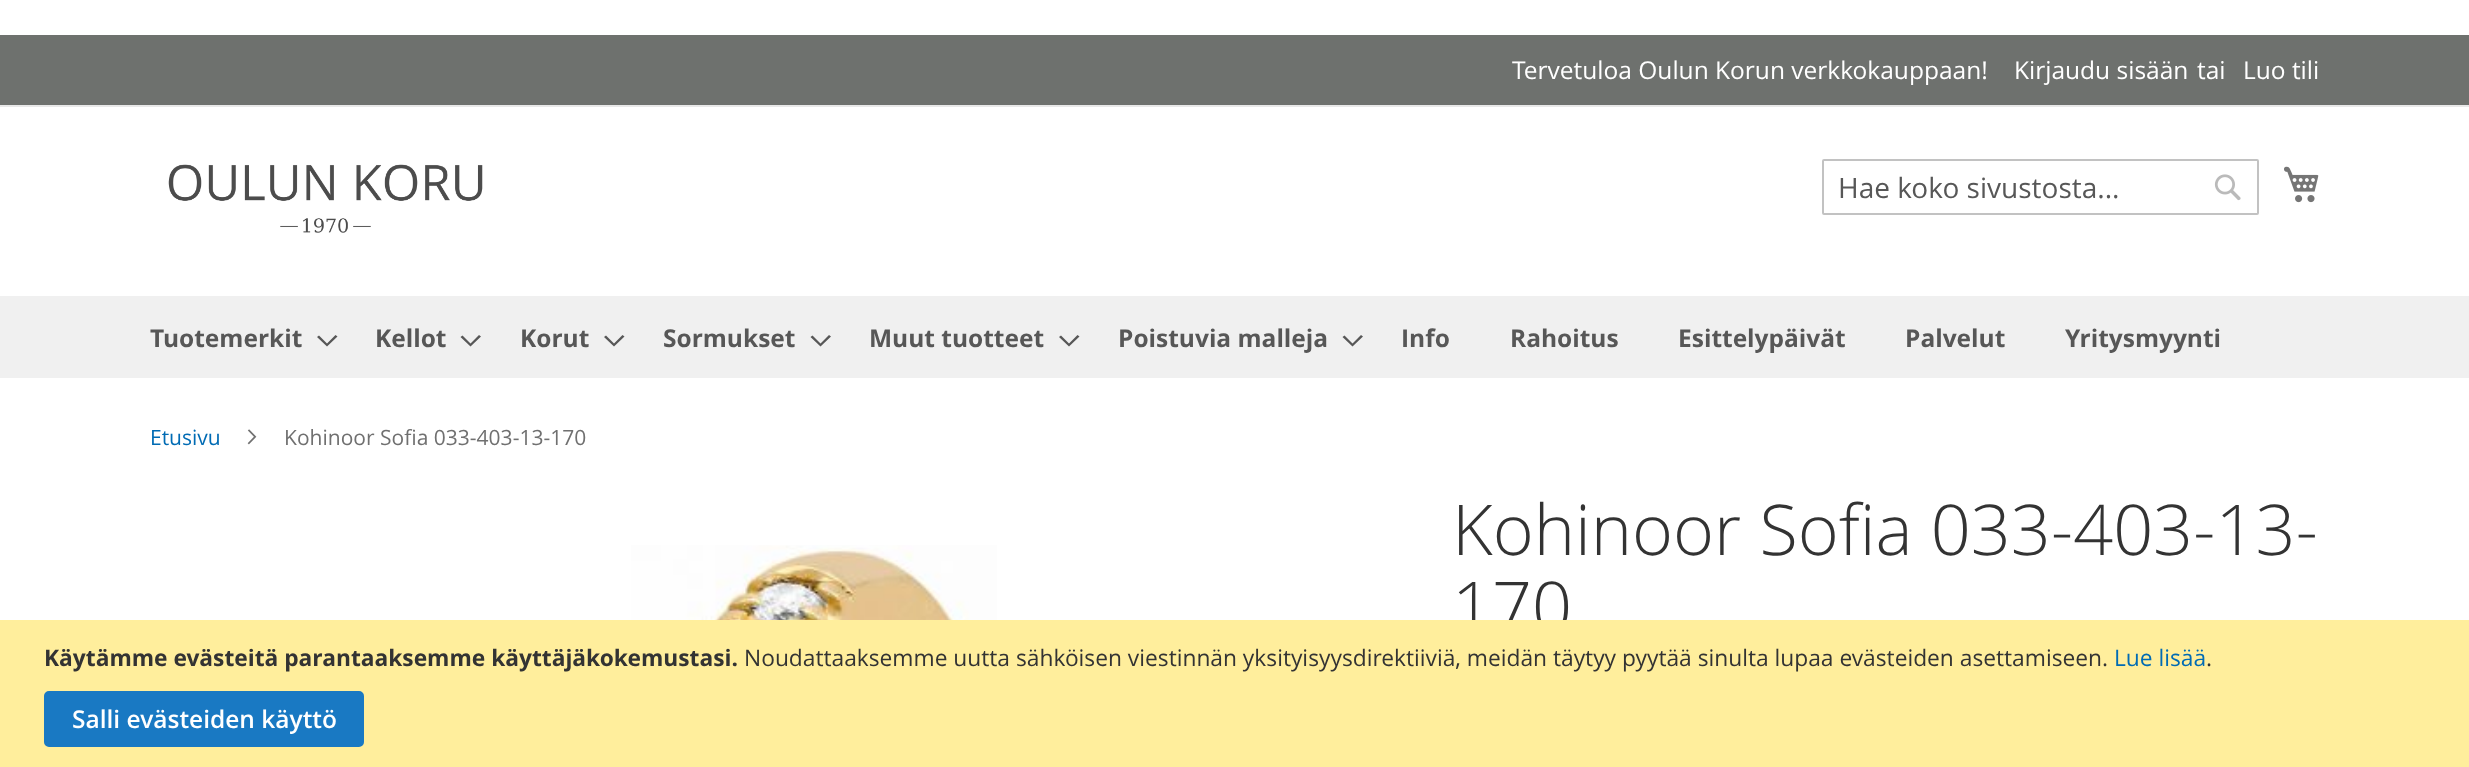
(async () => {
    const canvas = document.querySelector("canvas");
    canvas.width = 2469;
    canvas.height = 767;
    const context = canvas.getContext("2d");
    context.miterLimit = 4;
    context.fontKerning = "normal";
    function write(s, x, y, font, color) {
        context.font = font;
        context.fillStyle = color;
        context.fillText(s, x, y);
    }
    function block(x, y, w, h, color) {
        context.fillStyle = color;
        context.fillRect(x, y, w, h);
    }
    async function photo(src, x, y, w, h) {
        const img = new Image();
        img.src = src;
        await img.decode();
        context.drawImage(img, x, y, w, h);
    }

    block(0, 0, 2469, 767, "rgb(255, 255, 255)");
    block(0, 35, 2469, 70, "rgb(110, 113, 110)");
    block(0, 105, 2469, 2, "rgb(232, 232, 232)");
    write("Tervetuloa Oulun Korun verkkokauppaan!", 1512, 79, "24.5px Open Sans", "rgb(255, 255, 255)");
    write("Kirjaudu sisään", 2014, 79, "24.5px Open Sans", "rgb(255, 255, 255)");
    write("tai", 2197, 79, "24.5px Open Sans", "rgb(255, 255, 255)");
    write("Luo tili", 2243, 79, "24.5px Open Sans", "rgb(255, 255, 255)");
    await photo("media/1.png", 168, 164, 315, 69);
    context.beginPath();
    context.roundRect(1823, 160, 435, 54, 1);
    context.strokeStyle = "rgb(194, 194, 194)";
    context.lineWidth = 2;
    context.stroke();
    write("Hae koko sivustosta...", 1838, 198, "28px Open Sans", "rgb(87, 87, 87)");
    await photo("media/2.png", 2214, 174, 27, 27);
    await photo("media/3.png", 2284, 166, 35, 37);
    block(0, 296, 2469, 82, "rgb(240, 240, 240)");
    write("Tuotemerkit", 150, 347, "bold 24.5px Open Sans", "rgb(87, 87, 87)");
    context.beginPath();
    context.moveTo(327, 343.5);
    context.lineTo(319, 335.5);
    context.lineTo(317, 337);
    context.lineTo(327, 346.5);
    context.lineTo(337.5, 336.5);
    context.lineTo(335.5, 335);
    context.closePath();
    context.fill();
    write("Kellot", 375, 347, "bold 24.5px Open Sans", "rgb(87, 87, 87)");
    context.beginPath();
    context.moveTo(470.5, 343.5);
    context.lineTo(462.5, 335.5);
    context.lineTo(460.5, 337);
    context.lineTo(470.5, 346.5);
    context.lineTo(481, 336.5);
    context.lineTo(479, 335);
    context.closePath();
    context.fill();
    write("Korut", 520, 347, "bold 24.5px Open Sans", "rgb(87, 87, 87)");
    context.beginPath();
    context.moveTo(614, 343.5);
    context.lineTo(606, 335.5);
    context.lineTo(604, 337);
    context.lineTo(614, 346.5);
    context.lineTo(624.5, 336.5);
    context.lineTo(622.5, 335);
    context.closePath();
    context.fill();
    write("Sormukset", 663, 347, "bold 24.5px Open Sans", "rgb(87, 87, 87)");
    context.beginPath();
    context.moveTo(820.5, 343.5);
    context.lineTo(812.5, 335.5);
    context.lineTo(810.5, 337);
    context.lineTo(820.5, 346.5);
    context.lineTo(831, 336.5);
    context.lineTo(829, 335);
    context.closePath();
    context.fill();
    write("Muut tuotteet", 869, 347, "bold 24.5px Open Sans", "rgb(87, 87, 87)");
    context.beginPath();
    context.moveTo(1069, 343.5);
    context.lineTo(1061, 335.5);
    context.lineTo(1059, 337);
    context.lineTo(1069, 346.5);
    context.lineTo(1079.5, 336.5);
    context.lineTo(1077.5, 335);
    context.closePath();
    context.fill();
    write("Poistuvia malleja", 1118, 347, "bold 24.5px Open Sans", "rgb(87, 87, 87)");
    context.beginPath();
    context.moveTo(1352.5, 343.5);
    context.lineTo(1344.5, 335.5);
    context.lineTo(1342.5, 337);
    context.lineTo(1352.5, 346.5);
    context.lineTo(1363, 336.5);
    context.lineTo(1361, 335);
    context.closePath();
    context.fill();
    write("Info", 1401, 347, "bold 24.5px Open Sans", "rgb(87, 87, 87)");
    write("Rahoitus", 1510, 347, "bold 24.5px Open Sans", "rgb(87, 87, 87)");
    write("Esittelypäivät", 1678, 347, "bold 24.5px Open Sans", "rgb(87, 87, 87)");
    write("Palvelut", 1905, 347, "bold 24.5px Open Sans", "rgb(87, 87, 87)");
    write("Yritysmyynti", 2065, 347, "bold 24.5px Open Sans", "rgb(87, 87, 87)");
    write("Etusivu", 150, 445, "21px Open Sans", "rgb(0, 107, 180)");
    await photo("media/4.png", 247, 429, 10, 16);
    write("Kohinoor Sofia 033-403-13-170", 284, 445, "21px Open Sans", "rgb(112, 112, 112)");
    await photo("media/5.png", 631, 545, 366, 75);
    write("Kohinoor Sofia 033-403-13-", 1452, 555, "300 70px Open Sans", "rgb(51, 51, 51)");
    write("170", 1452, 632, "300 70px Open Sans", "rgb(51, 51, 51)");
    block(0, 620, 2469, 147, "rgb(255, 238, 156)");
    write("Käytämme evästeitä parantaaksemme käyttäjäkokemustasi.", 44, 666, "bold 22.75px Open Sans", "rgb(51, 51, 51)");
    write("Noudattaaksemme uutta sähköisen viestinnän yksityisyysdirektiiviä, meidän täytyy pyytää sinulta lupaa evästeiden asettamiseen.", 744, 666, "22.75px Open Sans", "rgb(51, 51, 51)");
    write("Lue lisää", 2114, 666, "22.75px Open Sans", "rgb(0, 107, 180)");
    write(".", 2206, 666, "22.75px Open Sans", "rgb(51, 51, 51)");
    context.fillStyle = "rgb(25, 121, 195)";
    context.beginPath();
    context.roundRect(45, 692, 318, 54, 4);
    context.fill();
    context.strokeStyle = "rgb(25, 121, 195)";
    context.stroke();
    write("Salli evästeiden käyttö", 72, 728, "600 24.5px Open Sans", "rgb(255, 255, 255)");
})();
